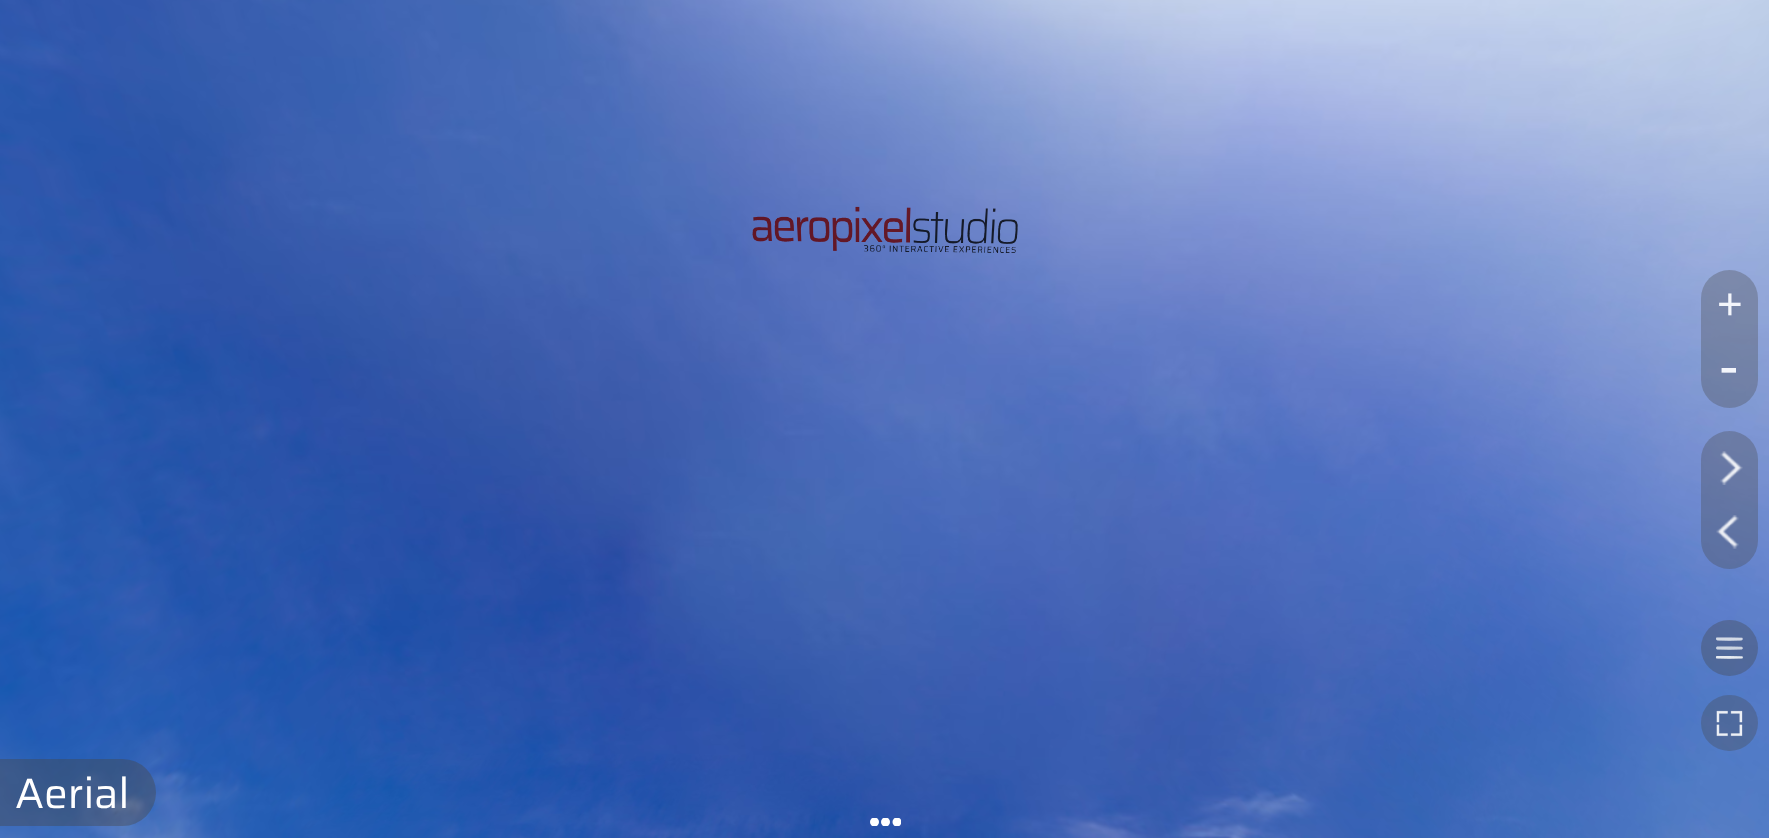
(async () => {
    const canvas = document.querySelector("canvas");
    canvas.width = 1769;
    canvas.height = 838;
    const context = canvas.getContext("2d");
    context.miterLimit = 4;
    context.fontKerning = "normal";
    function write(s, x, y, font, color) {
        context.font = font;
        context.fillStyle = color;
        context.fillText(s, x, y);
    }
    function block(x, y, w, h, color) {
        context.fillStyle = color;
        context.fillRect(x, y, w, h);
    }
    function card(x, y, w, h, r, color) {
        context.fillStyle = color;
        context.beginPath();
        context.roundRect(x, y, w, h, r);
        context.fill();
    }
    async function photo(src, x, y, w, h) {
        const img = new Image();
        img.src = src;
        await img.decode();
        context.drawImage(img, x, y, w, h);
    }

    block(0, 0, 1769, 838, "rgb(255, 255, 255)");
    await photo("media/1.png", 0, 0, 1769, 838);
    await photo("media/2.png", 752, 206, 266, 47);
    context.fillStyle = "rgba(70, 70, 70, 0.32)";
    context.beginPath();
    context.roundRect(1701, 270, 57, 69, [28.5, 28.5, 0, 0]);
    context.fill();
    write("+", 1717, 319, "44px Liberation Sans", "rgb(243, 245, 251)");
    context.fillStyle = "rgba(70, 70, 70, 0.32)";
    context.beginPath();
    context.roundRect(1701, 339, 57, 69, [0, 0, 28.5, 28.5]);
    context.fill();
    write("-", 1719, 386, "59px Liberation Sans", "rgb(243, 245, 251)");
    context.fillStyle = "rgba(70, 70, 70, 0.32)";
    context.beginPath();
    context.roundRect(1701, 431, 57, 69, [28.5, 28.5, 0, 0]);
    context.fill();
    await photo("media/3.png", 1720, 451, 23, 34);
    context.beginPath();
    context.roundRect(1701, 500, 57, 69, [0, 0, 28.5, 28.5]);
    context.fill();
    await photo("media/4.png", 1716, 515, 23, 34);
    card(1701, 620, 57, 56, 28, "rgba(70, 70, 70, 0.35)");
    await photo("media/5.png", 1715, 637, 28, 22);
    card(1701, 695, 57, 56, 28, "rgba(70, 70, 70, 0.32)");
    await photo("media/6.png", 1716, 710, 27, 27);
    context.fillStyle = "rgba(70, 70, 70, 0.4)";
    context.beginPath();
    context.roundRect(0, 759, 156, 67, [0, 33.5, 33.5, 0]);
    context.fill();
    write("Aerial", 15, 808, "100 42.5px Saira", "rgb(255, 255, 255)");
    context.save();
    context.beginPath();
    context.rect(870, 818, 31, 8);
    context.clip();
    context.beginPath();
    context.arc(874.5, 822, 4.5, 0, Math.PI * 2);
    context.fill();
    context.beginPath();
    context.arc(897, 822, 4.5, 0, Math.PI * 2);
    context.fill();
    context.beginPath();
    context.arc(885.5, 822, 4.5, 0, Math.PI * 2);
    context.fill();
    context.restore();
})();
